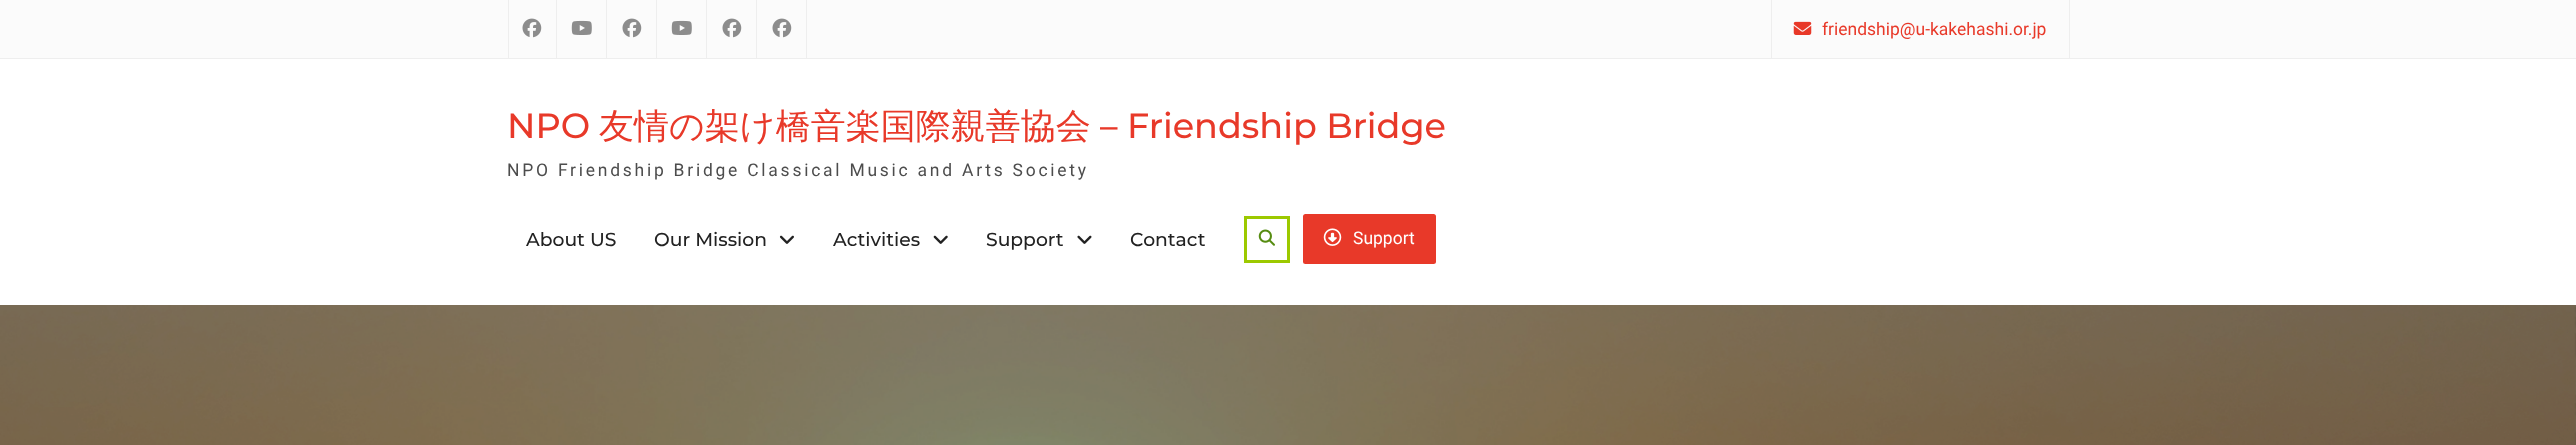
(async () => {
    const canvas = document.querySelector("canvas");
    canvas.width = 2576;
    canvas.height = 445;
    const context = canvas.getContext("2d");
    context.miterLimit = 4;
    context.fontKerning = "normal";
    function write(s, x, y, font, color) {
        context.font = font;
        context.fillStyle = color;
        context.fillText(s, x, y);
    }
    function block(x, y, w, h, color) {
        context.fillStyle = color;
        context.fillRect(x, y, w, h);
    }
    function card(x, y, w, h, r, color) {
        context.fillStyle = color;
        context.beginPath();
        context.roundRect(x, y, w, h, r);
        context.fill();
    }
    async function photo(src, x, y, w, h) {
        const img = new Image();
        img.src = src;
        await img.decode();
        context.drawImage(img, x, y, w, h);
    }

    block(0, 0, 2576, 445, "rgb(255, 255, 255)");
    block(0, 0, 2576, 58, "rgb(251, 251, 251)");
    block(0, 58, 2576, 1, "rgb(238, 238, 238)");
    block(556, 0, 1, 58, "rgb(238, 238, 238)");
    block(508, 0, 1, 58, "rgb(238, 238, 238)");
    await photo("media/1.png", 522, 18, 20, 20);
    block(606, 0, 1, 58, "rgb(238, 238, 238)");
    await photo("media/2.png", 571, 20, 21, 15);
    block(656, 0, 1, 58, "rgb(238, 238, 238)");
    await photo("media/1.png", 622, 18, 20, 20);
    block(706, 0, 1, 58, "rgb(238, 238, 238)");
    await photo("media/2.png", 671, 20, 21, 15);
    block(756, 0, 1, 58, "rgb(238, 238, 238)");
    await photo("media/1.png", 722, 18, 20, 20);
    block(806, 0, 1, 58, "rgb(238, 238, 238)");
    await photo("media/1.png", 772, 18, 20, 20);
    block(2069, 0, 1, 58, "rgb(238, 238, 238)");
    block(1771, 0, 1, 58, "rgb(238, 238, 238)");
    await photo("media/3.png", 1793, 21, 19, 14);
    write("friendship@u-kakehashi.or.jp", 1822, 35, "17.5px Roboto", "rgb(232, 57, 41)");
    write("NPO", 507, 138, "100 35px Montserrat", "rgb(232, 57, 41)");
    write("友情の架け橋音楽国際親善協会", 599, 138, "500 35px WenQuanYi Zen Hei", "rgb(232, 57, 41)");
    write("– Friendship Bridge", 1100, 138, "100 35px Montserrat", "rgb(232, 57, 41)");
    context.letterSpacing = "2.75px";
    write("NPO Friendship Bridge Classical Music and Arts Society", 507, 176, "17.5px Roboto", "rgb(77, 77, 77)");
    context.letterSpacing = "0px";
    write("About US", 526, 246, "100 18.75px Montserrat", "rgb(34, 34, 34)");
    write("Our Mission", 654, 246, "100 18.75px Montserrat", "rgb(34, 34, 34)");
    await photo("media/4.png", 779, 235, 15, 9);
    write("Activities", 833, 246, "100 18.75px Montserrat", "rgb(34, 34, 34)");
    await photo("media/5.png", 933, 235, 15, 9);
    write("Support", 986, 246, "100 18.75px Montserrat", "rgb(34, 34, 34)");
    await photo("media/6.png", 1077, 235, 15, 9);
    write("Contact", 1130, 246, "100 18.75px Montserrat", "rgb(34, 34, 34)");
    context.strokeStyle = "rgb(156, 201, 0)";
    context.lineWidth = 3;
    context.strokeRect(1245.5, 217.5, 43, 44);
    await photo("media/7.png", 1258, 229, 17, 17);
    card(1303, 214, 133, 50, 2.5, "rgb(232, 57, 41)");
    await photo("media/8.png", 1323, 228, 19, 18);
    write("Support", 1353, 244, "17.5px Roboto", "rgb(255, 255, 255)");
    await photo("media/9.png", 0, 305, 2576, 140);
})();
